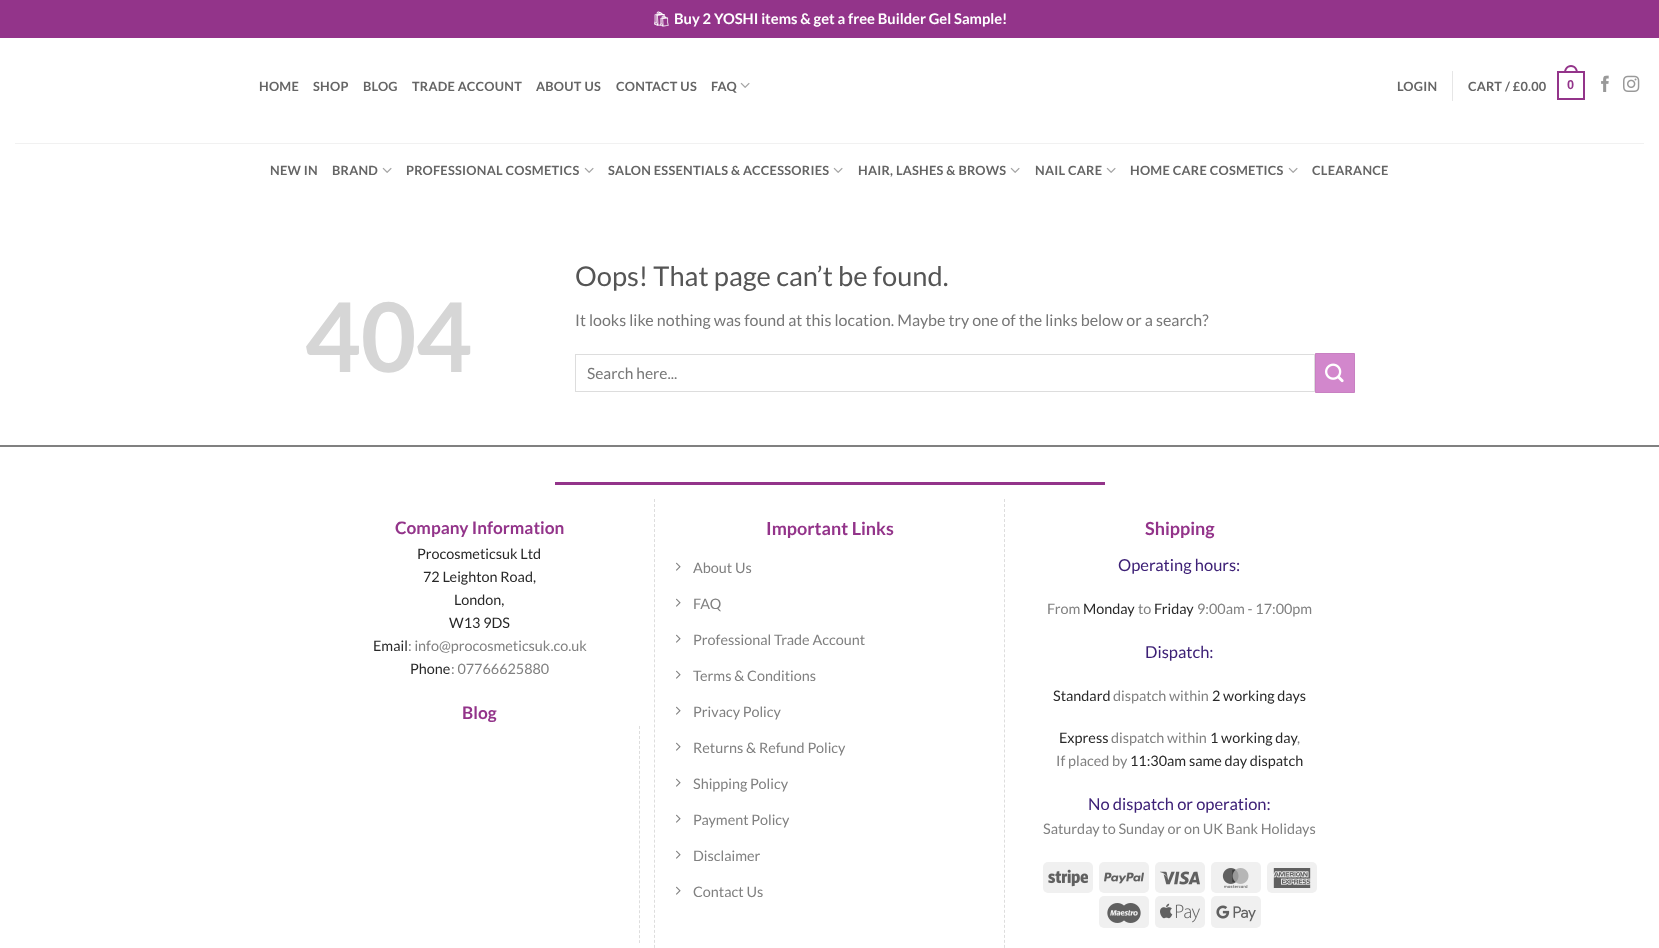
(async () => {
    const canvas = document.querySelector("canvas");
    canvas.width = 1659;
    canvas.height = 948;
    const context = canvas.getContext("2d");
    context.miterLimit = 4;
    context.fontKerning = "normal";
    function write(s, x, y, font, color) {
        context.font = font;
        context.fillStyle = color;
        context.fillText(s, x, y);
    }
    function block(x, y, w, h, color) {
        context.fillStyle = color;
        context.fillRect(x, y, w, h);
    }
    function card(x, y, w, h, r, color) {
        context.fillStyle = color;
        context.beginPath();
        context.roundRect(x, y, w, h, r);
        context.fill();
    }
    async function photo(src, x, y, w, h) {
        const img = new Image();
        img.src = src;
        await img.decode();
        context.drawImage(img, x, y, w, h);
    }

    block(0, 0, 1659, 948, "rgb(255, 255, 255)");
    block(0, 0, 1659, 38, "rgb(147, 52, 138)");
    write("🛍", 652, 24, "bold 14.7px Noto Emoji", "rgb(255, 255, 255)");
    write("Buy 2 YOSHI items & get a free Builder Gel Sample!", 674, 24, "bold 14.7px Lato", "rgb(255, 255, 255)");
    context.letterSpacing = "0.25px";
    write("HOME", 259, 91, "bold 12.75px Lato", "rgb(101, 101, 101)");
    write("SHOP", 313, 91, "bold 12.75px Lato", "rgb(101, 101, 101)");
    write("BLOG", 363, 91, "bold 12.75px Lato", "rgb(101, 101, 101)");
    write("TRADE ACCOUNT", 412, 91, "bold 12.75px Lato", "rgb(101, 101, 101)");
    write("ABOUT US", 536, 91, "bold 12.75px Lato", "rgb(101, 101, 101)");
    write("CONTACT US", 616, 91, "bold 12.75px Lato", "rgb(101, 101, 101)");
    write("FAQ", 711, 91, "bold 12.75px Lato", "rgb(101, 101, 101)");
    await photo("media/1.png", 740, 82, 10, 6);
    write("LOGIN", 1397, 91, "bold 12.75px Lato", "rgb(101, 101, 101)");
    block(1452, 71, 1, 30, "rgb(230, 230, 230)");
    write("CART / £0.00", 1468, 91, "bold 12.75px Lato", "rgb(101, 101, 101)");
    context.strokeStyle = "rgb(147, 52, 138)";
    context.lineWidth = 2;
    context.strokeRect(1558, 72, 26, 27);
    context.fillStyle = "rgb(147, 52, 138)";
    context.beginPath();
    context.moveTo(1571, 65);
    context.bezierCurveTo(1575.5, 65, 1578, 69, 1578, 73);
    context.lineTo(1564, 73);
    context.bezierCurveTo(1564, 69, 1566.5, 65, 1571, 65);
    context.closePath();
    context.moveTo(1571, 67);
    context.bezierCurveTo(1574.5, 67, 1576, 70, 1576, 73);
    context.lineTo(1566, 73);
    context.bezierCurveTo(1566, 70, 1567.5, 67, 1571, 67);
    context.closePath();
    context.fill("evenodd");
    write("0", 1567, 89, "bold 12.75px Liberation Sans", "rgb(147, 52, 138)");
    await photo("media/2.png", 1601, 75, 8, 17);
    await photo("media/3.png", 1623, 75, 17, 17);
    block(15, 143, 1629, 1, "rgb(241, 241, 241)");
    write("NEW IN", 270, 175, "bold 12.75px Lato", "rgb(101, 101, 101)");
    write("BRAND", 332, 175, "bold 12.75px Lato", "rgb(101, 101, 101)");
    await photo("media/1.png", 382, 167, 10, 6);
    write("PROFESSIONAL COSMETICS", 406, 175, "bold 12.75px Lato", "rgb(101, 101, 101)");
    await photo("media/1.png", 584, 167, 10, 6);
    write("SALON ESSENTIALS & ACCESSORIES", 608, 175, "bold 12.75px Lato", "rgb(101, 101, 101)");
    await photo("media/1.png", 833, 167, 10, 6);
    write("HAIR, LASHES & BROWS", 858, 175, "bold 12.75px Lato", "rgb(101, 101, 101)");
    await photo("media/1.png", 1010, 167, 10, 6);
    write("NAIL CARE", 1035, 175, "bold 12.75px Lato", "rgb(101, 101, 101)");
    await photo("media/1.png", 1106, 167, 10, 6);
    write("HOME CARE COSMETICS", 1130, 175, "bold 12.75px Lato", "rgb(101, 101, 101)");
    await photo("media/1.png", 1288, 167, 10, 6);
    write("CLEARANCE", 1312, 175, "bold 12.75px Lato", "rgb(101, 101, 101)");
    context.letterSpacing = "0px";
    write("404", 305, 372, "bold 96px Lato", "rgb(214, 214, 214)");
    write("Oops! That page can’t be found.", 575, 286, "27.25px Lato", "rgb(85, 85, 85)");
    write("It looks like nothing was found at this location. Maybe try one of the links below or a search?", 575, 326, "16px Lato", "rgb(119, 119, 119)");
    context.strokeStyle = "rgb(221, 221, 221)";
    context.lineWidth = 1;
    context.strokeRect(575.5, 354.5, 739, 37);
    write("Search here...", 587, 379, "15.5px Lato", "rgb(119, 119, 119)");
    context.fillStyle = "rgb(210, 135, 204)";
    context.beginPath();
    context.rect(1315.5, 353.5, 39, 39);
    context.fill();
    context.strokeStyle = "rgb(200, 128, 194)";
    context.stroke();
    await photo("media/4.png", 1325, 363, 19, 20);
    block(0, 445, 1659, 2, "rgb(128, 128, 128)");
    block(555, 482, 550, 3, "rgb(147, 52, 138)");
    write("Company Information", 395, 534, "bold 17.25px Lato", "rgb(147, 52, 138)");
    write("Procosmeticsuk Ltd", 417, 559, "14.4px Lato", "rgb(40, 40, 40)");
    write("72 Leighton Road,", 423, 582, "14.4px Lato", "rgb(40, 40, 40)");
    write("London,", 454, 605, "14.4px Lato", "rgb(40, 40, 40)");
    write("W13 9DS", 449, 628, "14.4px Lato", "rgb(40, 40, 40)");
    write("Email", 373, 651, "14.4px Lato", "rgb(40, 40, 40)");
    write(": info@procosmeticsuk.co.uk", 408, 651, "14.4px Lato", "rgb(128, 128, 128)");
    write("Phone", 410, 674, "14.4px Lato", "rgb(40, 40, 40)");
    write(": 07766625880", 451, 674, "14.4px Lato", "rgb(128, 128, 128)");
    write("Blog", 462, 719, "bold 17.25px Lato", "rgb(147, 52, 138)");
    context.beginPath();
    context.moveTo(639.5, 726);
    context.lineTo(639.5, 943);
    context.strokeStyle = "rgb(221, 221, 221)";
    context.setLineDash([3, 1.98]);
    context.stroke();
    context.beginPath();
    context.moveTo(654.5, 499);
    context.lineTo(654.5, 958);
    context.setLineDash([3, 2.01]);
    context.stroke();
    write("Important Links", 766, 535, "bold 18px Lato", "rgb(147, 52, 138)");
    await photo("media/5.png", 676, 562, 5, 9);
    write("About Us", 693, 573, "14.4px Lato", "rgb(128, 128, 128)");
    await photo("media/5.png", 676, 598, 5, 9);
    write("FAQ", 693, 609, "14.4px Lato", "rgb(128, 128, 128)");
    await photo("media/5.png", 676, 634, 5, 9);
    write("Professional Trade Account", 693, 645, "14.4px Lato", "rgb(128, 128, 128)");
    await photo("media/5.png", 676, 670, 5, 9);
    write("Terms & Conditions", 693, 681, "14.4px Lato", "rgb(128, 128, 128)");
    await photo("media/5.png", 676, 706, 5, 9);
    write("Privacy Policy", 693, 717, "14.4px Lato", "rgb(128, 128, 128)");
    await photo("media/5.png", 676, 742, 5, 9);
    write("Returns & Refund Policy", 693, 753, "14.4px Lato", "rgb(128, 128, 128)");
    await photo("media/5.png", 676, 778, 5, 9);
    write("Shipping Policy", 693, 789, "14.4px Lato", "rgb(128, 128, 128)");
    await photo("media/5.png", 676, 814, 5, 9);
    write("Payment Policy", 693, 825, "14.4px Lato", "rgb(128, 128, 128)");
    await photo("media/5.png", 676, 850, 5, 9);
    write("Disclaimer", 693, 861, "14.4px Lato", "rgb(128, 128, 128)");
    await photo("media/5.png", 676, 886, 5, 9);
    write("Contact Us", 693, 897, "14.4px Lato", "rgb(128, 128, 128)");
    context.beginPath();
    context.moveTo(1004.5, 499);
    context.lineTo(1004.5, 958);
    context.stroke();
    write("Shipping", 1145, 535, "bold 18px Lato", "rgb(147, 52, 138)");
    write("Operating hours:", 1118, 571, "16.5px Lato", "rgb(61, 32, 118)");
    write("From", 1047, 614, "14.4px Lato", "rgb(128, 128, 128)");
    write("Monday", 1083, 614, "14.4px Lato", "rgb(40, 40, 40)");
    write("to", 1138, 614, "14.4px Lato", "rgb(128, 128, 128)");
    write("Friday", 1154, 614, "14.4px Lato", "rgb(40, 40, 40)");
    write("9:00am - 17:00pm", 1197, 614, "14.4px Lato", "rgb(128, 128, 128)");
    write("Dispatch:", 1145, 658, "16.5px Lato", "rgb(61, 32, 118)");
    write("Standard", 1053, 701, "14.4px Lato", "rgb(40, 40, 40)");
    write("dispatch within", 1113, 701, "14.4px Lato", "rgb(128, 128, 128)");
    write("2 working days", 1212, 701, "14.4px Lato", "rgb(40, 40, 40)");
    write("Express", 1059, 743, "14.4px Lato", "rgb(40, 40, 40)");
    write("dispatch within", 1111, 743, "14.4px Lato", "rgb(128, 128, 128)");
    write("1 working day", 1210, 743, "14.4px Lato", "rgb(40, 40, 40)");
    write(",", 1297, 743, "14.4px Lato", "rgb(128, 128, 128)");
    write("If placed by", 1056, 766, "14.4px Lato", "rgb(128, 128, 128)");
    write("11:30am same day dispatch", 1130, 766, "14.4px Lato", "rgb(40, 40, 40)");
    write("No dispatch or operation:", 1088, 810, "16.5px Lato", "rgb(61, 32, 118)");
    write("Saturday to Sunday or on UK Bank Holidays", 1043, 834, "14.4px Lato", "rgb(128, 128, 128)");
    card(1043, 862, 50, 31, 5, "rgb(240, 240, 240)");
    await photo("media/6.png", 1048, 869, 40, 18);
    card(1099, 862, 50, 31, 5, "rgb(240, 240, 240)");
    await photo("media/7.png", 1104, 872, 40, 12);
    card(1155, 862, 50, 31, 5, "rgb(240, 240, 240)");
    await photo("media/8.png", 1160, 871, 40, 14);
    card(1211, 862, 50, 31, 5, "rgb(240, 240, 240)");
    await photo("media/9.png", 1222, 868, 27, 20);
    card(1267, 862, 50, 31, 5, "rgb(240, 240, 240)");
    await photo("media/10.png", 1273, 868, 38, 20);
    card(1099, 896, 50, 32, 5, "rgb(240, 240, 240)");
    await photo("media/11.png", 1107, 903, 34, 20);
    card(1155, 896, 50, 32, 5, "rgb(240, 240, 240)");
    await photo("media/12.png", 1160, 903, 40, 20);
    card(1211, 896, 50, 32, 5, "rgb(240, 240, 240)");
    await photo("media/13.png", 1216, 905, 40, 17);
})();
